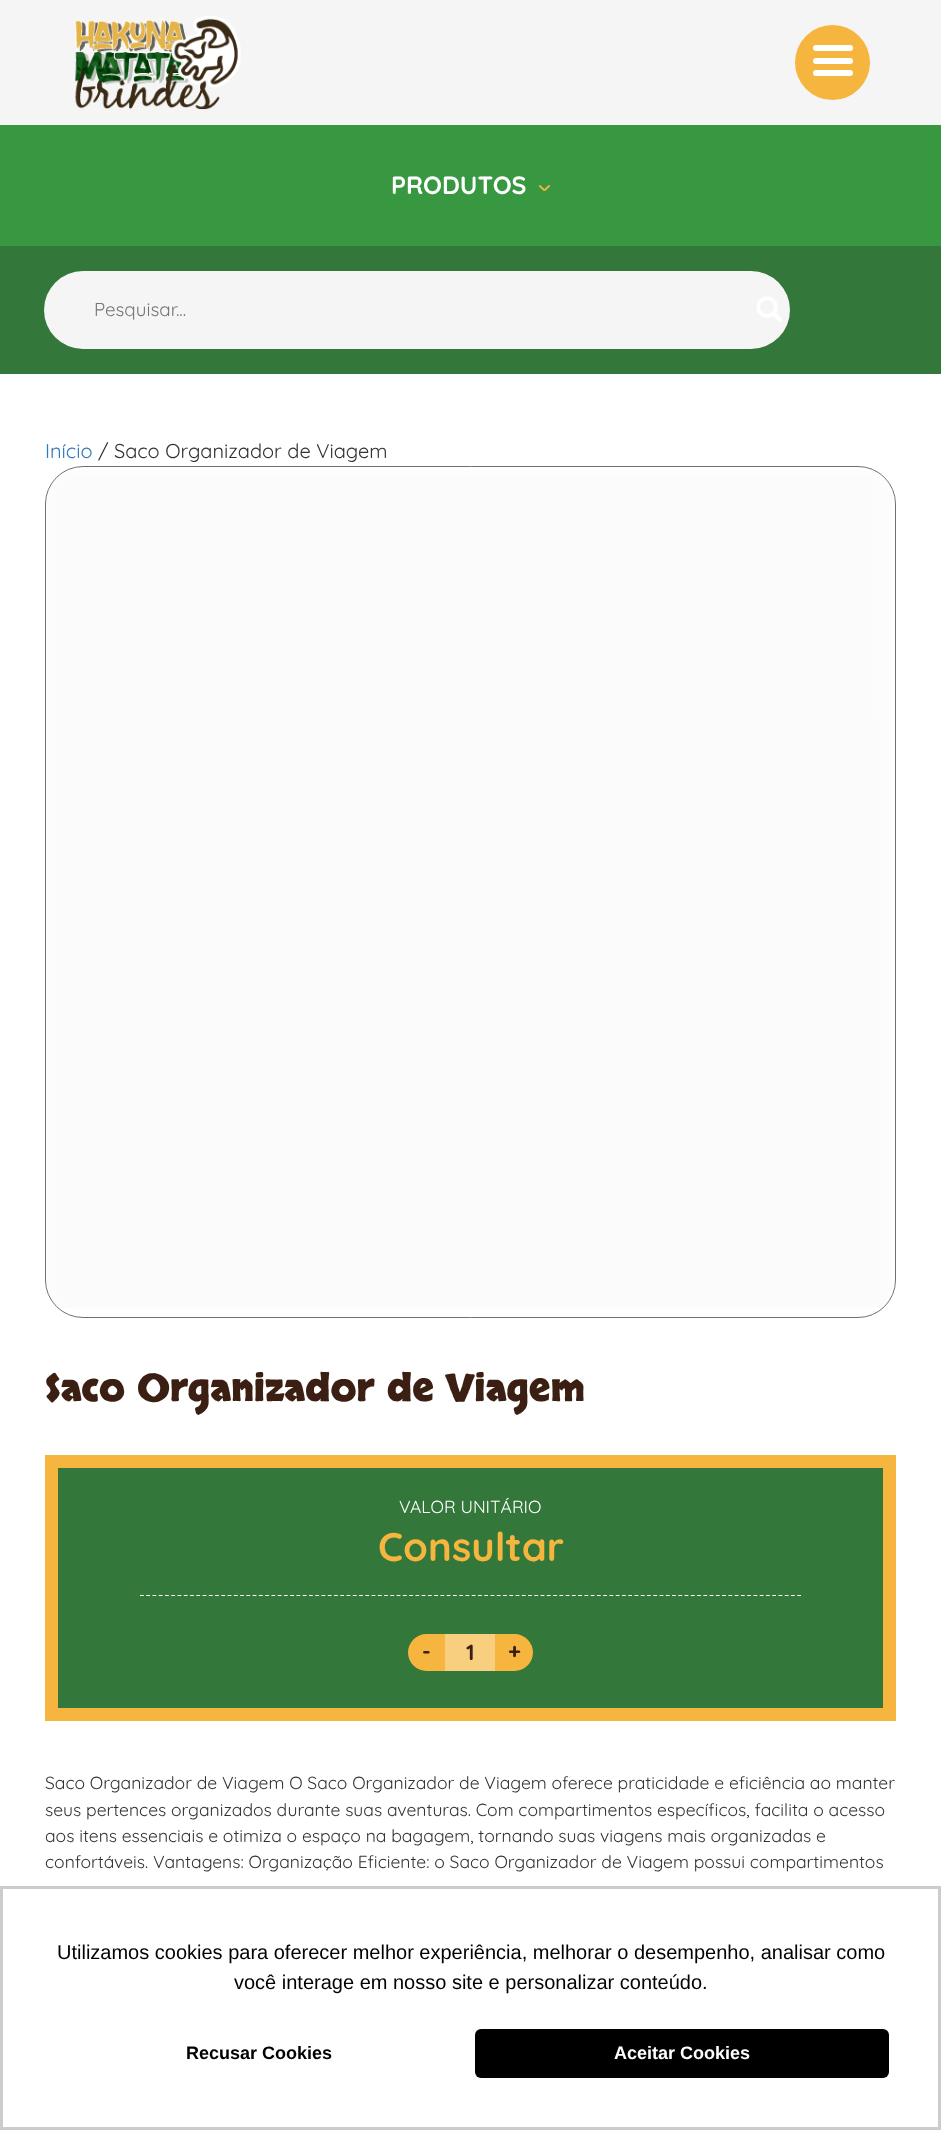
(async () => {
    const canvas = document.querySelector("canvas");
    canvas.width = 941;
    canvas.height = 2130;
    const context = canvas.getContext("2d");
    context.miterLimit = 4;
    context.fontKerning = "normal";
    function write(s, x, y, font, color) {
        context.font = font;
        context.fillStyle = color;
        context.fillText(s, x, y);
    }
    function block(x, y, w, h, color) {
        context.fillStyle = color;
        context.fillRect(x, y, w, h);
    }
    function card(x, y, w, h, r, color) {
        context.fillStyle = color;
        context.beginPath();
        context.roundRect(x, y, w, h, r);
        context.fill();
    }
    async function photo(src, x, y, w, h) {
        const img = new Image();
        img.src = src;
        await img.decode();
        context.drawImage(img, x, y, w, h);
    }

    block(0, 0, 941, 2130, "rgb(255, 255, 255)");
    block(0, 0, 941, 125, "rgb(245, 245, 245)");
    await photo("media/1.png", 74, 16, 167, 94);
    context.fillStyle = "rgb(246, 181, 62)";
    context.beginPath();
    context.arc(832.5, 62.5, 37.5, 0, Math.PI * 2);
    context.fill();
    card(813, 45, 40, 6, 3, "rgb(255, 255, 255)");
    card(813, 58, 40, 6, 3, "rgb(255, 255, 255)");
    card(813, 70, 40, 6, 3, "rgb(255, 255, 255)");
    block(0, 246, 941, 128, "rgb(51, 119, 58)");
    block(0, 125, 941, 121, "rgb(55, 152, 65)");
    write("PRODUTOS", 391, 194, "bold 25px Quicksand", "rgb(255, 255, 255)");
    await photo("media/2.png", 539, 185, 11, 6);
    card(44, 271, 746, 78, 39, "rgb(245, 245, 245)");
    write("Pesquisar...", 94, 316, "18.75px Quicksand", "rgb(117, 117, 117)");
    await photo("media/3.png", 756, 296, 26, 26);
    write("Início", 45, 458, "20px Quicksand", "rgb(51, 122, 183)");
    write("/ Saco Organizador de Viagem", 98, 458, "20px Quicksand", "rgb(51, 51, 51)");
    context.beginPath();
    context.roundRect(45.5, 466.5, 850, 851, 37.5);
    context.strokeStyle = "rgb(112, 112, 112)";
    context.stroke();
    await photo("media/4.png", 46, 470, 849, 838);
    write("Saco Organizador de Viagem", 45, 1401, "bold 37.5px Skranji", "rgb(59, 31, 18)");
    context.fillStyle = "rgb(51, 119, 58)";
    context.beginPath();
    context.rect(51.5, 1461.5, 838, 253);
    context.fill();
    context.strokeStyle = "rgb(246, 181, 62)";
    context.lineWidth = 13;
    context.stroke();
    write("VALOR UNITÁRIO", 399, 1513, "17.5px Quicksand", "rgb(255, 255, 255)");
    write("Consultar", 378, 1561, "bold 40px Quicksand", "rgb(246, 181, 62)");
    context.beginPath();
    context.moveTo(140, 1595.5);
    context.lineTo(801, 1595.5);
    context.strokeStyle = "rgb(255, 255, 255)";
    context.lineWidth = 1.2;
    context.setLineDash([3.75, 2.51]);
    context.stroke();
    context.beginPath();
    context.roundRect(408, 1634, 37, 37, [18.5, 0, 0, 18.5]);
    context.fill();
    write("-", 422, 1659, "bold 22px Quicksand", "rgb(59, 31, 18)");
    block(445, 1634, 50, 37, "rgb(248, 206, 127)");
    write("1", 466, 1660, "bold 22px Quicksand", "rgb(59, 31, 18)");
    context.fillStyle = "rgb(246, 181, 62)";
    context.beginPath();
    context.roundRect(495, 1634, 38, 37, [0, 18.5, 18.5, 0]);
    context.fill();
    write("+", 508, 1659, "bold 22px Quicksand", "rgb(59, 31, 18)");
    write("Saco Organizador de Viagem O Saco Organizador de Viagem oferece praticidade e eficiência ao manter", 45, 1789, "17.5px Quicksand", "rgb(51, 51, 51)");
    write("seus pertences organizados durante suas aventuras. Com compartimentos específicos, facilita o acesso", 45, 1816, "17.5px Quicksand", "rgb(51, 51, 51)");
    write("aos itens essenciais e otimiza o espaço na bagagem, tornando suas viagens mais organizadas e", 45, 1842, "17.5px Quicksand", "rgb(51, 51, 51)");
    write("confortáveis. Vantagens: Organização Eficiente: o Saco Organizador de Viagem possui compartimentos", 45, 1868, "17.5px Quicksand", "rgb(51, 51, 51)");
    context.strokeStyle = "rgb(204, 204, 204)";
    context.lineWidth = 3;
    context.setLineDash([]);
    context.strokeRect(1.5, 1887.5, 938, 241);
    write("Utilizamos cookies para oferecer melhor experiência, melhorar o desempenho, analisar como", 57, 1959, "20px Liberation Sans", "rgb(0, 0, 0)");
    write("você interage em nosso site e personalizar conteúdo.", 234, 1989, "20px Liberation Sans", "rgb(0, 0, 0)");
    write("Recusar Cookies", 186, 2059, "bold 18px Liberation Sans", "rgb(0, 0, 0)");
    card(475, 2029, 414, 49, 6, "rgb(0, 0, 0)");
    write("Aceitar Cookies", 614, 2059, "bold 18px Liberation Sans", "rgb(255, 255, 255)");
})();
